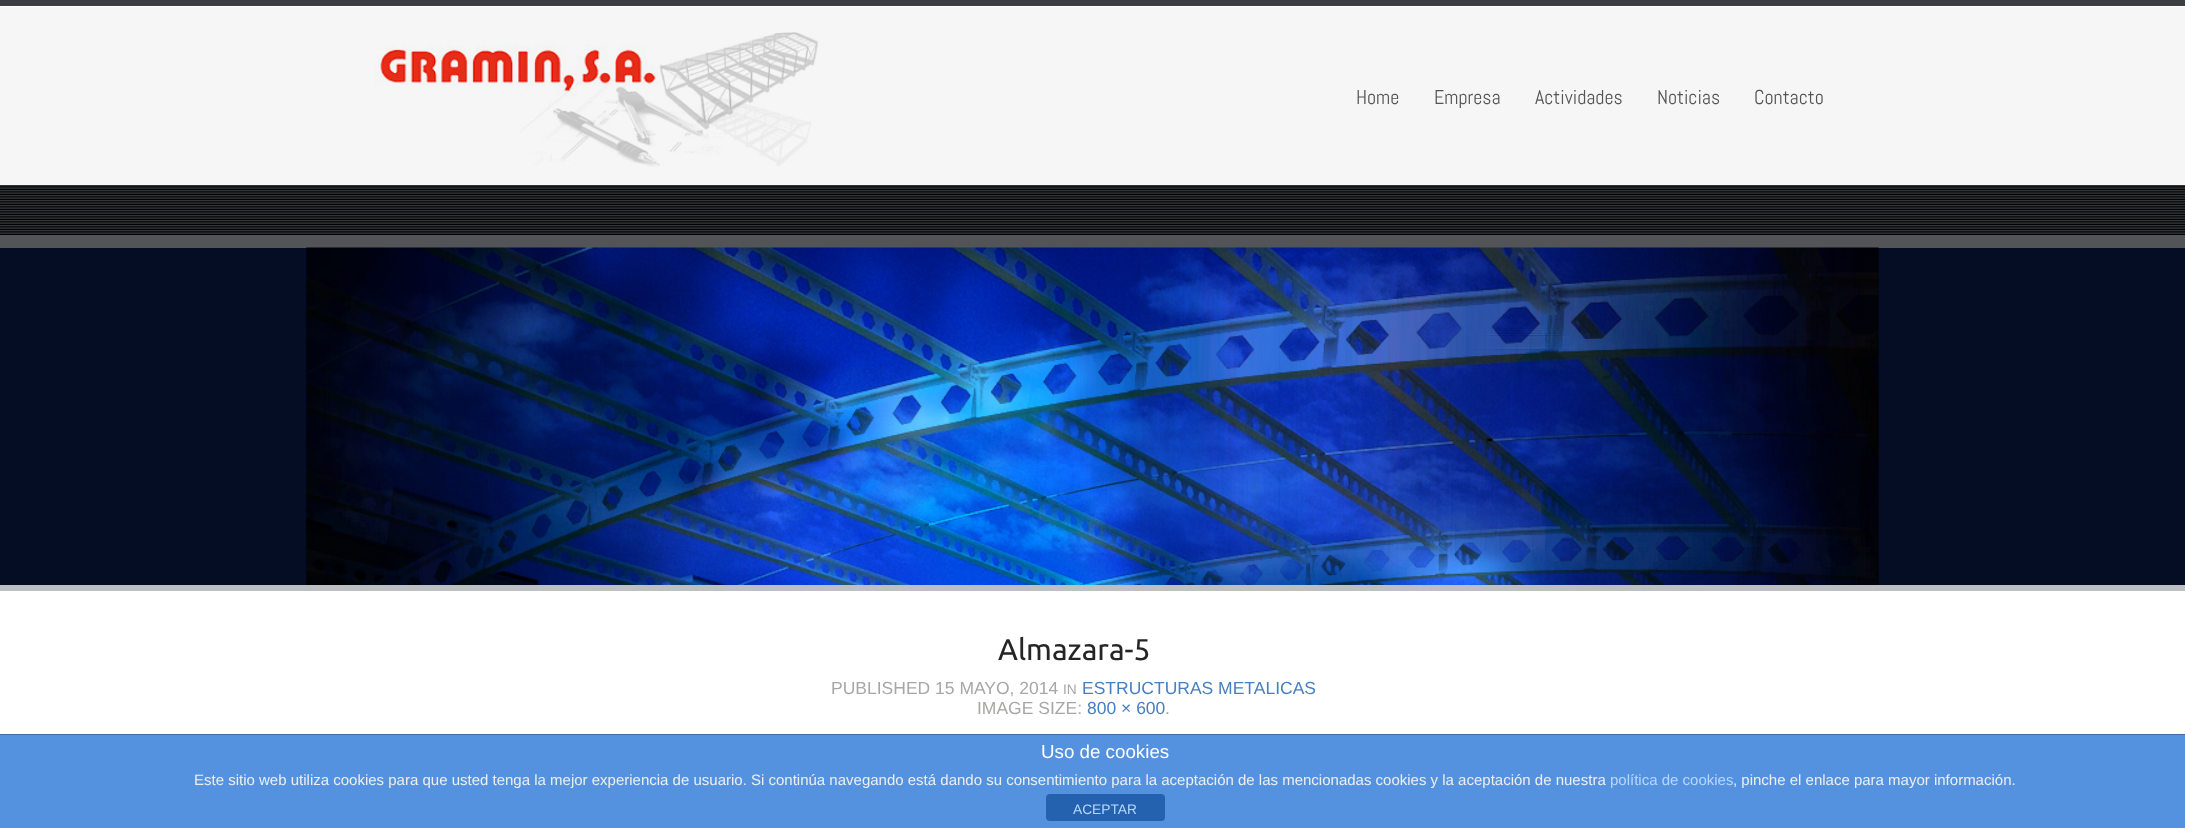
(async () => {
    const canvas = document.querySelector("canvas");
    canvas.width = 2185;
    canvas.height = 828;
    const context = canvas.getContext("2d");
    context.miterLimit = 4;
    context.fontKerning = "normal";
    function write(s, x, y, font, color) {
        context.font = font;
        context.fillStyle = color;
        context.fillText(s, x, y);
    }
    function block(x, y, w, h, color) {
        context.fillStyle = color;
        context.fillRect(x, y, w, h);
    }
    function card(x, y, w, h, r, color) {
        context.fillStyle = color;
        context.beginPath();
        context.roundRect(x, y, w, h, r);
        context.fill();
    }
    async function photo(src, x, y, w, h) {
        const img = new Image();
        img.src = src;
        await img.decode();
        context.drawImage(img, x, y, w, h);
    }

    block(0, 0, 2185, 828, "rgb(255, 255, 255)");
    block(0, 0, 2185, 6, "rgb(60, 63, 65)");
    block(0, 7, 2185, 178, "rgb(246, 246, 246)");
    await photo("media/1.png", 374, 32, 445, 135);
    write("Home", 1356, 104, "20px Abel", "rgb(85, 85, 85)");
    write("Empresa", 1434, 104, "20px Abel", "rgb(85, 85, 85)");
    write("Actividades", 1535, 104, "20px Abel", "rgb(85, 85, 85)");
    write("Noticias", 1657, 104, "20px Abel", "rgb(85, 85, 85)");
    write("Contacto", 1754, 104, "20px Abel", "rgb(85, 85, 85)");
    block(0, 185, 2185, 50, "rgb(57, 60, 63)");
    await photo("media/2.png", 0, 185, 2185, 50);
    block(0, 248, 2185, 337, "rgb(5, 13, 36)");
    block(0, 235, 2185, 13, "rgb(82, 84, 88)");
    block(0, 585, 2185, 6, "rgb(188, 192, 195)");
    await photo("media/3.png", 306, 247, 1573, 338);
    write("Almazara-5", 998, 660, "30px Ubuntu", "rgb(37, 37, 37)");
    write("PUBLISHED 15 MAYO, 2014", 831, 694, "17.5px Liberation Sans", "rgb(166, 168, 165)");
    write("IN", 1063, 694, "13.75px Liberation Sans", "rgb(166, 168, 165)");
    write("ESTRUCTURAS METALICAS", 1082, 694, "17.5px Liberation Sans", "rgb(70, 127, 194)");
    write("IMAGE SIZE:", 977, 714, "17.5px Liberation Sans", "rgb(166, 168, 165)");
    write("800 × 600", 1087, 714, "17.5px Liberation Sans", "rgb(70, 127, 194)");
    write(".", 1165, 714, "17.5px Liberation Sans", "rgb(166, 168, 165)");
    block(0, 735, 2185, 93, "rgb(84, 146, 224)");
    block(0, 734, 2185, 1, "rgb(63, 109, 167)");
    write("Uso de cookies", 1041, 758, "18.75px Liberation Sans", "rgb(255, 255, 255)");
    write("Este sitio web utiliza cookies para que usted tenga la mejor experiencia de usuario. Si continúa navegando está dando su consentimiento para la aceptación de las mencionadas cookies y la aceptación de nuestra", 194, 785, "15px Liberation Sans", "rgb(238, 238, 238)");
    write("política de cookies", 1610, 785, "15px Liberation Sans", "rgb(183, 215, 255)");
    write(", pinche el enlace para mayor información.", 1733, 785, "15px Liberation Sans", "rgb(238, 238, 238)");
    card(1046, 794, 119, 27, 4, "rgb(36, 98, 176)");
    write("ACEPTAR", 1073, 814, "13.75px Liberation Sans", "rgb(183, 215, 255)");
})();
